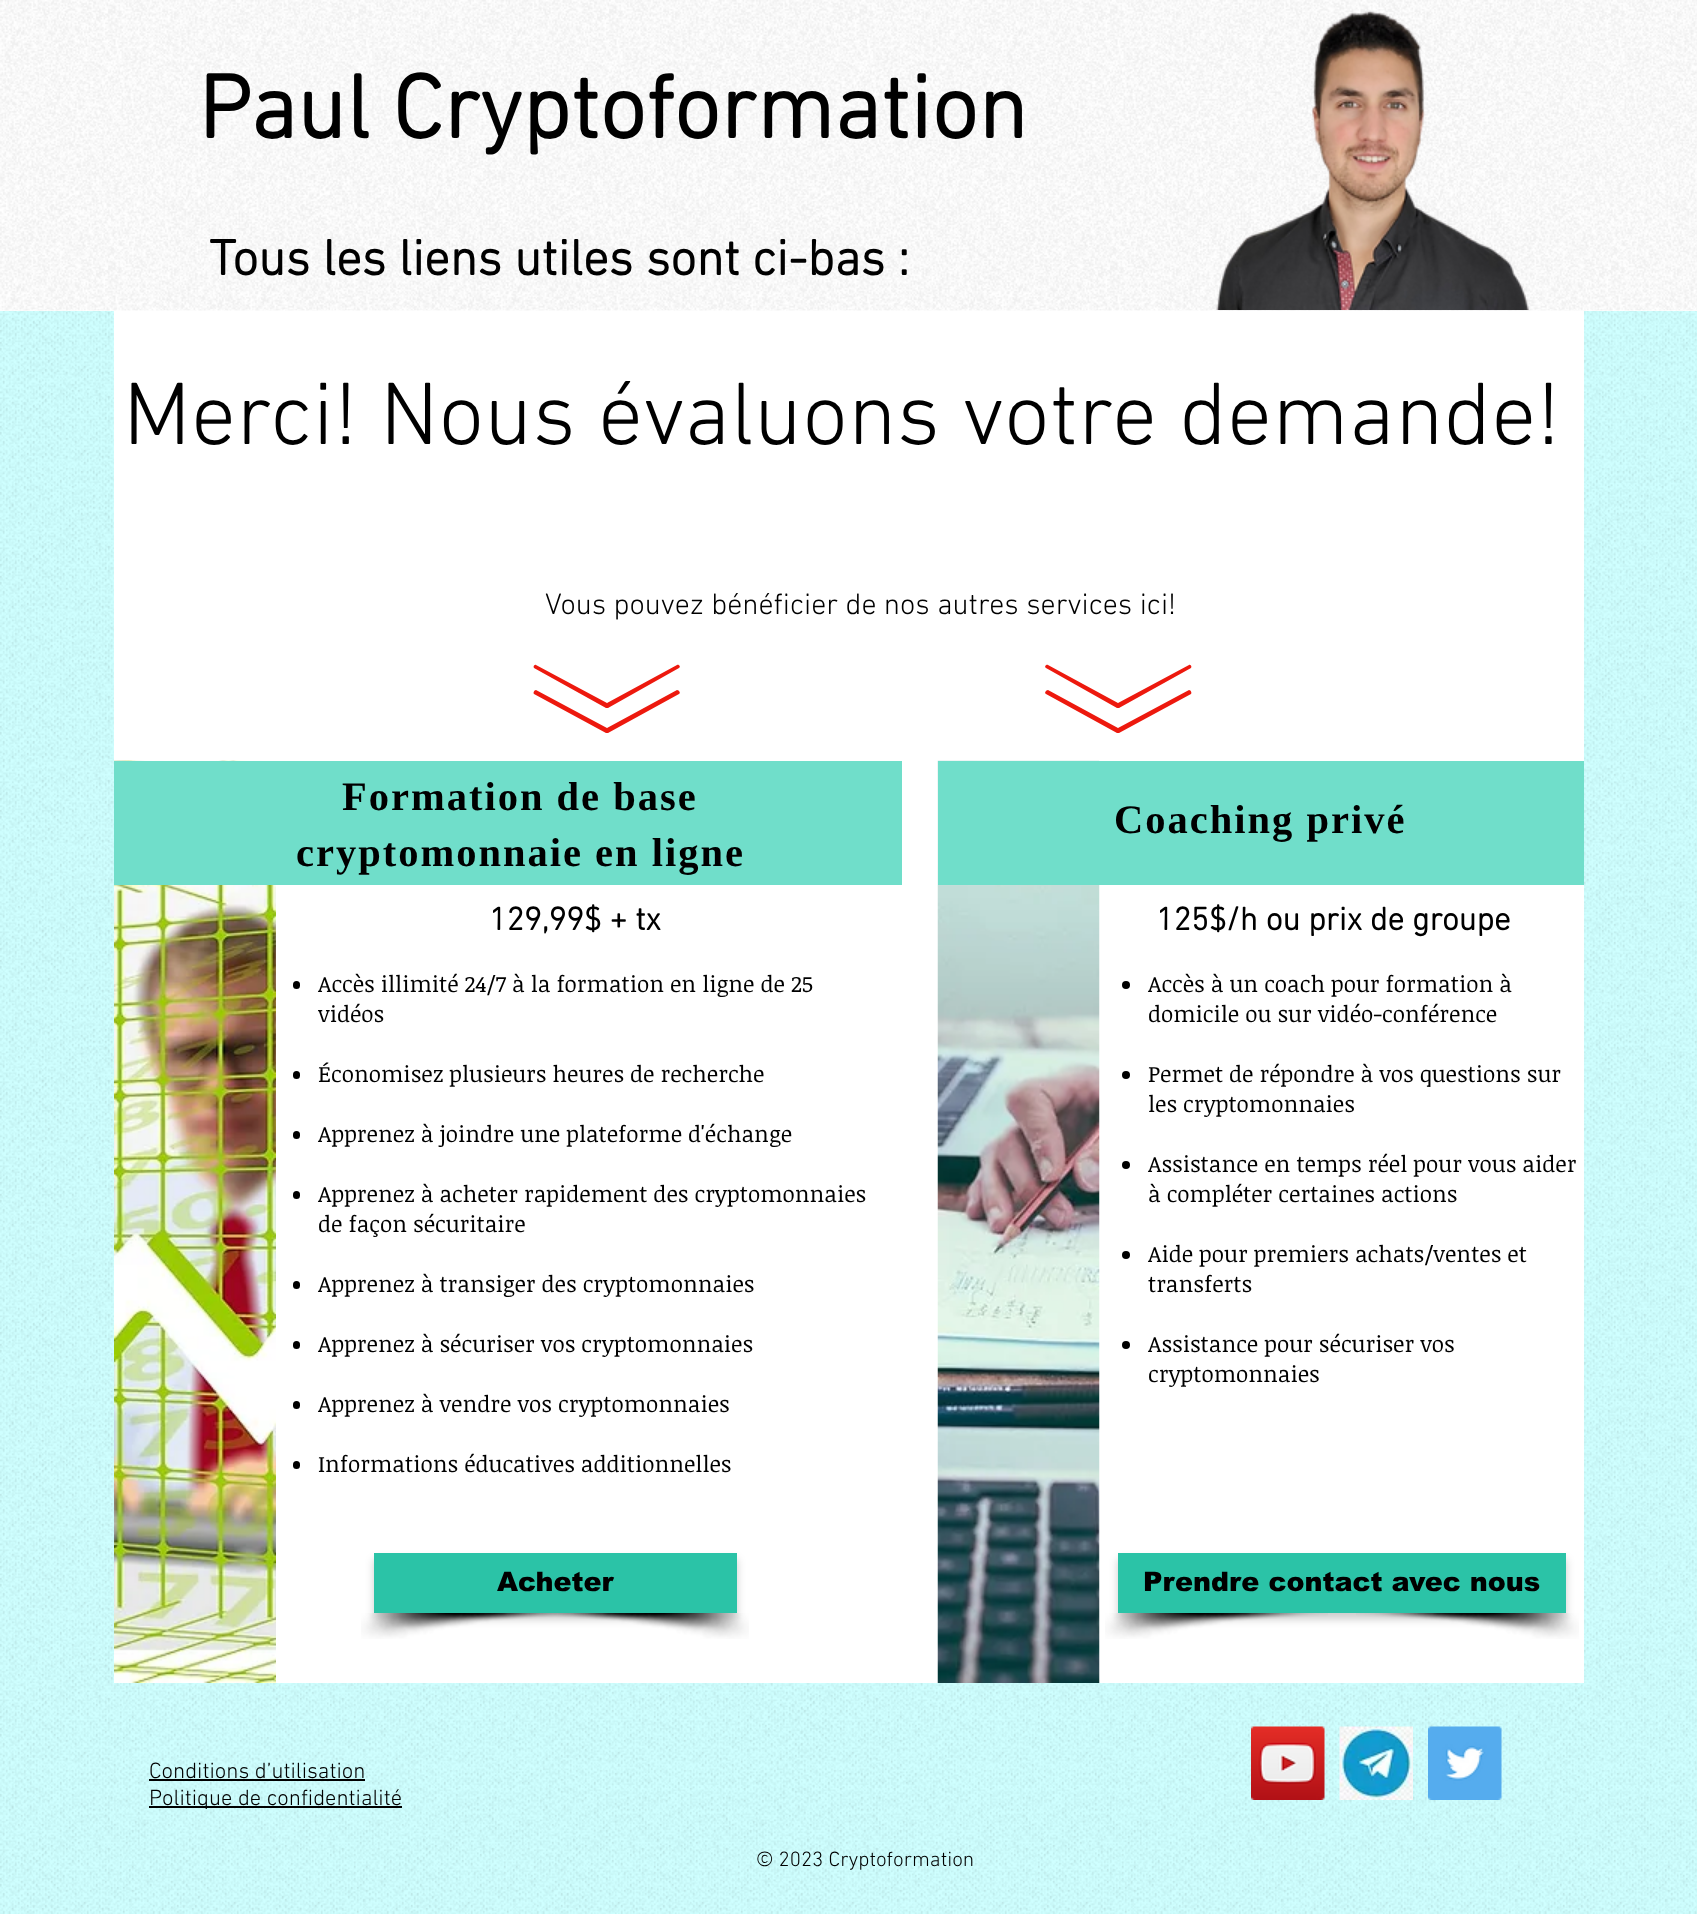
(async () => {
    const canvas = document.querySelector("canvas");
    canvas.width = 1697;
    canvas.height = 1914;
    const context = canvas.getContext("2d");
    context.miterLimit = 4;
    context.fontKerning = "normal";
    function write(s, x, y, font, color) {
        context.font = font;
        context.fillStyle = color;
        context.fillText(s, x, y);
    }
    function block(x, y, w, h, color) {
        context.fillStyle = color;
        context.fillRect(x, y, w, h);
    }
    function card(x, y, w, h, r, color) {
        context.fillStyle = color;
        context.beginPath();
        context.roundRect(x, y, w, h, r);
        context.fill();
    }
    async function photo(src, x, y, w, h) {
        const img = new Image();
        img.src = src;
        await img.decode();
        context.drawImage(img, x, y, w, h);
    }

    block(0, 0, 1697, 1914, "rgb(207, 255, 255)");
    block(0, 0, 1697, 311, "rgb(255, 255, 255)");
    await photo("media/1.png", 0, 0, 1697, 311);
    write("Paul Cryptoformation", 198, 138, "bold 91.5px 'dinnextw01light'", "rgb(0, 0, 0)");
    await photo("media/2.png", 1216, 10, 313, 301);
    write("Tous les liens utiles sont ci-bas :", 209, 275, "bold 51px 'dinnextw01light'", "rgb(0, 0, 0)");
    await photo("media/12.png", 0, 311, 1697, 1603);
    block(114, 311, 1470, 1372, "rgb(255, 255, 255)");
    write("Merci! Nous évaluons votre demande!", 123, 444, "300 90px 'dinnextw01light'", "rgb(0, 0, 0)");
    write("Vous pouvez bénéficier de nos autres services ici!", 545, 614, "300 30px 'dinnextw01light'", "rgb(0, 0, 0)");
    context.fillStyle = "rgb(237, 25, 14)";
    context.beginPath();
    context.moveTo(536, 690);
    context.lineTo(607, 728);
    context.lineTo(677, 690);
    context.bezierCurveTo(679, 690, 681, 693, 679, 694);
    context.lineTo(608, 733);
    context.lineTo(606, 733);
    context.lineTo(534, 694);
    context.bezierCurveTo(533, 693, 534, 690, 536, 690);
    context.closePath();
    context.fill();
    context.beginPath();
    context.moveTo(536, 665);
    context.lineTo(607, 703);
    context.lineTo(677, 665);
    context.bezierCurveTo(679, 664, 681, 667, 679, 668);
    context.lineTo(608, 708);
    context.lineTo(606, 708);
    context.lineTo(534, 668);
    context.bezierCurveTo(533, 667, 534, 664, 536, 665);
    context.closePath();
    context.fill();
    context.beginPath();
    context.moveTo(1048, 690);
    context.lineTo(1118, 728);
    context.lineTo(1189, 690);
    context.bezierCurveTo(1191, 690, 1192, 693, 1191, 694);
    context.lineTo(1119, 733);
    context.lineTo(1117, 733);
    context.lineTo(1046, 694);
    context.bezierCurveTo(1044, 693, 1046, 690, 1048, 690);
    context.closePath();
    context.fill();
    context.beginPath();
    context.moveTo(1048, 665);
    context.lineTo(1118, 703);
    context.lineTo(1189, 665);
    context.bezierCurveTo(1191, 664, 1192, 667, 1191, 668);
    context.lineTo(1119, 708);
    context.lineTo(1117, 708);
    context.lineTo(1046, 668);
    context.bezierCurveTo(1044, 667, 1046, 664, 1048, 665);
    context.closePath();
    context.fill();
    await photo("media/3.png", 114, 760, 162, 923);
    block(114, 761, 788, 124, "rgb(112, 222, 202)");
    context.letterSpacing = "2px";
    write("Formation de base", 342, 810, "bold 40.5px Liberation Serif", "rgb(0, 0, 0)");
    write("cryptomonnaie en ligne", 296, 866, "bold 40.5px Liberation Serif", "rgb(0, 0, 0)");
    context.letterSpacing = "0px";
    write("129,99$ + tx", 489, 930, "bold 33px 'dinnextw01light'", "rgb(0, 0, 0)");
    card(293, 981, 7, 8, 3.5, "rgb(0, 0, 0)");
    write("Accès illimité 24/7 à la formation en ligne de 25", 318, 992, "22.5px Noticia Text", "rgb(0, 0, 0)");
    write("vidéos", 318, 1022, "22.5px Noticia Text", "rgb(0, 0, 0)");
    card(293, 1071, 7, 8, 3.5, "rgb(0, 0, 0)");
    write("Économisez plusieurs heures de recherche", 318, 1082, "22.5px Noticia Text", "rgb(0, 0, 0)");
    card(293, 1131, 7, 8, 3.5, "rgb(0, 0, 0)");
    write("Apprenez à joindre une plateforme d'échange", 318, 1142, "22.5px Noticia Text", "rgb(0, 0, 0)");
    card(293, 1191, 7, 8, 3.5, "rgb(0, 0, 0)");
    write("Apprenez à acheter rapidement des cryptomonnaies", 318, 1202, "22.5px Noticia Text", "rgb(0, 0, 0)");
    write("de façon sécuritaire", 318, 1232, "22.5px Noticia Text", "rgb(0, 0, 0)");
    card(293, 1281, 7, 8, 3.5, "rgb(0, 0, 0)");
    write("Apprenez à transiger des cryptomonnaies", 318, 1292, "22.5px Noticia Text", "rgb(0, 0, 0)");
    card(293, 1341, 7, 8, 3.5, "rgb(0, 0, 0)");
    write("Apprenez à sécuriser vos cryptomonnaies", 318, 1352, "22.5px Noticia Text", "rgb(0, 0, 0)");
    card(293, 1401, 7, 8, 3.5, "rgb(0, 0, 0)");
    write("Apprenez à vendre vos cryptomonnaies", 318, 1412, "22.5px Noticia Text", "rgb(0, 0, 0)");
    card(293, 1461, 7, 8, 3.5, "rgb(0, 0, 0)");
    write("Informations éducatives additionnelles", 318, 1472, "22.5px Noticia Text", "rgb(0, 0, 0)");
    await photo("media/4.png", 361, 1613, 223, 26);
    await photo("media/5.png", 529, 1613, 220, 26);
    context.fillStyle = "rgba(0, 0, 0, 0.2)";
    context.filter = "blur(4.5px)";
    context.beginPath();
    context.rect(374, 1559, 363, 60);
    context.fill();
    context.filter = "none";
    block(374, 1553, 363, 60, "rgb(43, 195, 167)");
    write("Acheter", 497, 1591, "900 27px arial", "rgb(0, 0, 0)");
    await photo("media/6.png", 937, 760, 163, 923);
    block(938, 761, 646, 124, "rgb(112, 222, 202)");
    context.letterSpacing = "2px";
    write("Coaching privé", 1114, 833, "bold 40.5px Liberation Serif", "rgb(0, 0, 0)");
    context.letterSpacing = "0px";
    write("125$/h ou prix de groupe", 1156, 930, "bold 33px 'dinnextw01light'", "rgb(0, 0, 0)");
    context.beginPath();
    context.arc(1126, 985, 4, 0, Math.PI * 2);
    context.fill();
    write("Accès à un coach pour formation à", 1148, 992, "22.5px Noticia Text", "rgb(0, 0, 0)");
    write("domicile ou sur vidéo-conférence", 1148, 1022, "22.5px Noticia Text", "rgb(0, 0, 0)");
    context.beginPath();
    context.arc(1126, 1075, 4, 0, Math.PI * 2);
    context.fill();
    write("Permet de répondre à vos questions sur", 1148, 1082, "22.5px Noticia Text", "rgb(0, 0, 0)");
    write("les cryptomonnaies", 1148, 1112, "22.5px Noticia Text", "rgb(0, 0, 0)");
    context.beginPath();
    context.arc(1126, 1165, 4, 0, Math.PI * 2);
    context.fill();
    write("Assistance en temps réel pour vous aider", 1148, 1172, "22.5px Noticia Text", "rgb(0, 0, 0)");
    write("à compléter certaines actions", 1148, 1202, "22.5px Noticia Text", "rgb(0, 0, 0)");
    context.beginPath();
    context.arc(1126, 1255, 4, 0, Math.PI * 2);
    context.fill();
    write("Aide pour premiers achats/ventes et", 1148, 1262, "22.5px Noticia Text", "rgb(0, 0, 0)");
    write("transferts", 1148, 1292, "22.5px Noticia Text", "rgb(0, 0, 0)");
    context.beginPath();
    context.arc(1126, 1345, 4, 0, Math.PI * 2);
    context.fill();
    write("Assistance pour sécuriser vos", 1148, 1352, "22.5px Noticia Text", "rgb(0, 0, 0)");
    write("cryptomonnaies", 1148, 1382, "22.5px Noticia Text", "rgb(0, 0, 0)");
    await photo("media/7.png", 1105, 1613, 223, 26);
    await photo("media/8.png", 1356, 1613, 223, 26);
    context.fillStyle = "rgba(0, 0, 0, 0.2)";
    context.filter = "blur(4.5px)";
    context.beginPath();
    context.rect(1118, 1559, 448, 60);
    context.fill();
    context.filter = "none";
    block(1118, 1553, 448, 60, "rgb(43, 195, 167)");
    write("Prendre contact avec nous", 1143, 1591, "900 27px arial", "rgb(0, 0, 0)");
    write("Conditions d’utilisation", 149, 1778, "300 22.5px 'dinnextw01light'", "rgb(0, 0, 0)");
    block(149, 1779, 216, 2, "rgb(0, 0, 0)");
    block(149, 1806, 253, 2, "rgb(0, 0, 0)");
    write("Politique de confidentialité", 149, 1805, "300 22.5px 'dinnextw01light'", "rgb(0, 0, 0)");
    await photo("media/9.png", 1251, 1726, 74, 74);
    await photo("media/10.png", 1339, 1726, 74, 74);
    await photo("media/11.png", 1428, 1726, 74, 74);
    write("© 2023 Cryptoformation", 756, 1866, "300 21px 'dinnextw01light'", "rgb(0, 0, 0)");
})();
